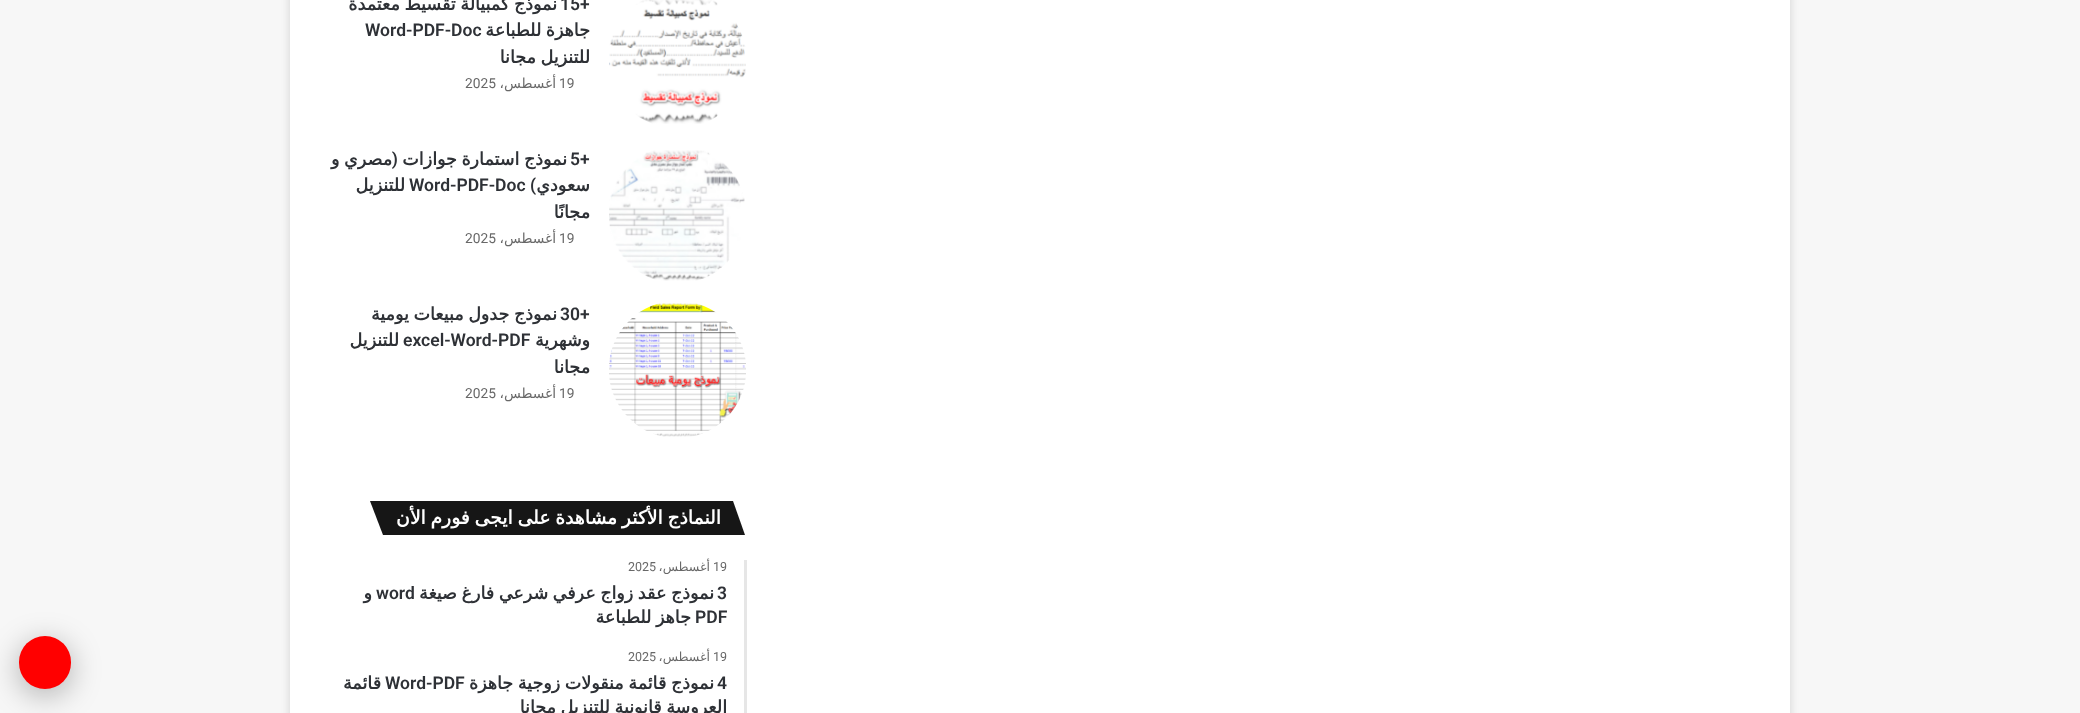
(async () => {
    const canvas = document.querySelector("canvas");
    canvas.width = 2080;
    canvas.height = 713;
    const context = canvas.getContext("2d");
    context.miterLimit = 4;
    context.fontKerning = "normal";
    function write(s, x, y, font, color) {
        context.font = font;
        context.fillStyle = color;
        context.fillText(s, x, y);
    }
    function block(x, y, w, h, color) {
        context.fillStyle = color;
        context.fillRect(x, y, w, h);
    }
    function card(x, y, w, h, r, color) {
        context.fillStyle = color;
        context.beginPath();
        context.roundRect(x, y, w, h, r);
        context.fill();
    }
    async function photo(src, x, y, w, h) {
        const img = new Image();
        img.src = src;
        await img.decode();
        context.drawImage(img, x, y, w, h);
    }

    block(0, 0, 2080, 713, "rgb(247, 247, 247)");
    context.fillStyle = "rgba(171, 171, 171, 0.5)";
    context.filter = "blur(4.5px)";
    context.beginPath();
    context.rect(290, -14, 1500, 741);
    context.fill();
    context.filter = "none";
    block(290, 0, 1500, 713, "rgb(255, 255, 255)");
    await photo("media/1.png", 609, 0, 137, 124);
    write("15+", 560, 10, "600 17.5px Roboto", "rgb(46, 49, 54)");
    context.wordSpacing = "-1px";
    context.direction = "rtl";
    write("نموذج كمبيالة تقسيط معتمدة", 557, 10, "bold 17.5px DejaVu Sans", "rgb(46, 49, 54)");
    write("جاهزة للطباعة", 590, 36, "bold 17.5px DejaVu Sans", "rgb(46, 49, 54)");
    context.wordSpacing = "0px";
    context.direction = "ltr";
    write("Word-PDF-Doc", 365, 36, "600 17.5px Roboto", "rgb(46, 49, 54)");
    context.wordSpacing = "-1px";
    context.direction = "rtl";
    write("للتنزيل مجانا", 590, 63, "bold 17.5px DejaVu Sans", "rgb(46, 49, 54)");
    context.wordSpacing = "0px";
    context.direction = "ltr";
    write("19", 559, 88, "13.75px Roboto", "rgb(104, 104, 104)");
    context.direction = "rtl";
    write("أغسطس،", 556, 88, "13.75px DejaVu Sans", "rgb(104, 104, 104)");
    context.direction = "ltr";
    write("2025", 465, 88, "13.75px Roboto", "rgb(104, 104, 104)");
    await photo("media/2.png", 609, 150, 136, 131);
    write("5+", 570, 165, "600 17.5px Roboto", "rgb(46, 49, 54)");
    context.wordSpacing = "-1px";
    context.direction = "rtl";
    write("نموذج استمارة جوازات", 567, 165, "bold 17.5px DejaVu Sans", "rgb(46, 49, 54)");
    context.wordSpacing = "0px";
    write("(", 398, 165, "600 17.5px Roboto", "rgb(46, 49, 54)");
    context.wordSpacing = "-1px";
    write("مصري و", 392, 165, "bold 17.5px DejaVu Sans", "rgb(46, 49, 54)");
    context.wordSpacing = "0px";
    write("سعودي", 590, 191, "bold 17.5px DejaVu Sans", "rgb(46, 49, 54)");
    write(")", 536, 191, "600 17.5px Roboto", "rgb(46, 49, 54)");
    context.direction = "ltr";
    write("Word-PDF-Doc", 409, 191, "600 17.5px Roboto", "rgb(46, 49, 54)");
    context.direction = "rtl";
    write("للتنزيل", 405, 191, "bold 17.5px DejaVu Sans", "rgb(46, 49, 54)");
    write("مجانًا", 590, 218, "bold 17.5px DejaVu Sans", "rgb(46, 49, 54)");
    context.direction = "ltr";
    write("19", 559, 243, "13.75px Roboto", "rgb(104, 104, 104)");
    context.direction = "rtl";
    write("أغسطس،", 556, 243, "13.75px DejaVu Sans", "rgb(104, 104, 104)");
    context.direction = "ltr";
    write("2025", 465, 243, "13.75px Roboto", "rgb(104, 104, 104)");
    await photo("media/3.png", 609, 303, 137, 134);
    write("30+", 560, 320, "600 17.5px Roboto", "rgb(46, 49, 54)");
    context.wordSpacing = "-1px";
    context.direction = "rtl";
    write("نموذج جدول مبيعات يومية", 557, 320, "bold 17.5px DejaVu Sans", "rgb(46, 49, 54)");
    context.wordSpacing = "0px";
    write("وشهرية", 590, 346, "bold 17.5px DejaVu Sans", "rgb(46, 49, 54)");
    context.direction = "ltr";
    write("excel-Word-PDF", 403, 346, "600 17.5px Roboto", "rgb(46, 49, 54)");
    context.direction = "rtl";
    write("للتنزيل", 399, 346, "bold 17.5px DejaVu Sans", "rgb(46, 49, 54)");
    write("مجانا", 590, 373, "bold 17.5px DejaVu Sans", "rgb(46, 49, 54)");
    context.direction = "ltr";
    write("19", 559, 398, "13.75px Roboto", "rgb(104, 104, 104)");
    context.direction = "rtl";
    write("أغسطس،", 556, 398, "13.75px DejaVu Sans", "rgb(104, 104, 104)");
    context.direction = "ltr";
    write("2025", 465, 398, "13.75px Roboto", "rgb(104, 104, 104)");
    context.fillStyle = "rgb(22, 22, 22)";
    context.beginPath();
    context.moveTo(370, 501);
    context.lineTo(733, 501);
    context.lineTo(745, 535);
    context.lineTo(383, 535);
    context.closePath();
    context.fill();
    context.wordSpacing = "-1.25px";
    context.direction = "rtl";
    write("النماذج الأكثر مشاهدة على ايجى فورم الأن", 721, 524, "bold 18.75px DejaVu Sans", "rgb(255, 255, 255)");
    block(744, 560, 3, 153, "rgb(230, 230, 230)");
    context.wordSpacing = "0px";
    context.direction = "ltr";
    write("19", 713, 571, "12.5px Roboto", "rgb(104, 104, 104)");
    context.direction = "rtl";
    write("أغسطس،", 710, 571, "12.5px DejaVu Sans", "rgb(104, 104, 104)");
    context.direction = "ltr";
    write("2025", 628, 571, "12.5px Roboto", "rgb(104, 104, 104)");
    write("3", 717, 599, "600 17.5px Roboto", "rgb(46, 49, 54)");
    context.wordSpacing = "-1px";
    context.direction = "rtl";
    write("نموذج عقد زواج عرفي شرعي فارغ صيغة", 714, 599, "bold 17.5px DejaVu Sans", "rgb(46, 49, 54)");
    context.wordSpacing = "0px";
    context.direction = "ltr";
    write("word", 376, 599, "600 17.5px Roboto", "rgb(46, 49, 54)");
    context.direction = "rtl";
    write("و", 372, 599, "bold 17.5px DejaVu Sans", "rgb(46, 49, 54)");
    context.direction = "ltr";
    write("PDF", 695, 623, "600 17.5px Roboto", "rgb(46, 49, 54)");
    context.wordSpacing = "-1px";
    context.direction = "rtl";
    write("جاهز للطباعة", 691, 623, "bold 17.5px DejaVu Sans", "rgb(46, 49, 54)");
    context.wordSpacing = "0px";
    context.direction = "ltr";
    write("19", 713, 661, "12.5px Roboto", "rgb(104, 104, 104)");
    context.direction = "rtl";
    write("أغسطس،", 710, 661, "12.5px DejaVu Sans", "rgb(104, 104, 104)");
    context.direction = "ltr";
    write("2025", 628, 661, "12.5px Roboto", "rgb(104, 104, 104)");
    write("4", 717, 689, "600 17.5px Roboto", "rgb(46, 49, 54)");
    context.wordSpacing = "-1px";
    context.direction = "rtl";
    write("نموذج قائمة منقولات زوجية جاهزة", 714, 689, "bold 17.5px DejaVu Sans", "rgb(46, 49, 54)");
    context.wordSpacing = "0px";
    context.direction = "ltr";
    write("Word-PDF", 385, 689, "600 17.5px Roboto", "rgb(46, 49, 54)");
    context.direction = "rtl";
    write("قائمة", 381, 689, "bold 17.5px DejaVu Sans", "rgb(46, 49, 54)");
    context.wordSpacing = "-1px";
    write("العروسة قانونية للتنزيل مجانا", 727, 713, "bold 17.5px DejaVu Sans", "rgb(46, 49, 54)");
    context.fillStyle = "rgba(0, 0, 0, 0.3)";
    context.filter = "blur(15.5px)";
    context.beginPath();
    context.roundRect(19, 643, 52, 52, 26);
    context.fill();
    context.filter = "none";
    card(19, 636, 52, 53, 26, "rgb(255, 0, 0)");
})();
